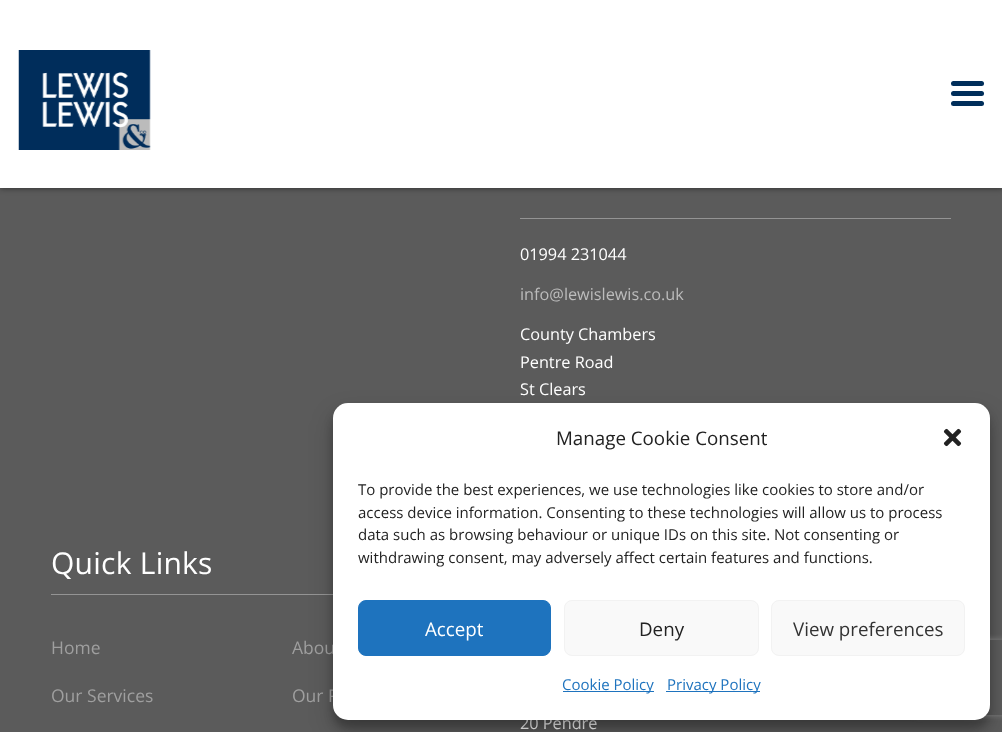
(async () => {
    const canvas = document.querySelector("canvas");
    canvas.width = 1002;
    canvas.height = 732;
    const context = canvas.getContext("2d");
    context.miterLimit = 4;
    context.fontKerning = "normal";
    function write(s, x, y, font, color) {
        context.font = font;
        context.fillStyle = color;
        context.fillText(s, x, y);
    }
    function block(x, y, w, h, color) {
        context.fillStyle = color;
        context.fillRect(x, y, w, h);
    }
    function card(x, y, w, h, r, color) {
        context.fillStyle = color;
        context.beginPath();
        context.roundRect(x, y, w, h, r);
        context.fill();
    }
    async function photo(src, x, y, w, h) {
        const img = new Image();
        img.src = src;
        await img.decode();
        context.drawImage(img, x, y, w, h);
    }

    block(0, 0, 1002, 732, "rgb(91, 91, 91)");
    context.fillStyle = "rgba(0, 0, 0, 0.52)";
    context.filter = "blur(3px)";
    context.beginPath();
    context.rect(0, 0, 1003, 188);
    context.fill();
    context.filter = "none";
    block(0, 0, 1002, 188, "rgb(255, 255, 255)");
    await photo("media/1.png", 18, 50, 133, 100);
    card(951, 91, 33, 5, 2.5, "rgb(0, 46, 90)");
    card(951, 81, 33, 5, 2.5, "rgb(0, 46, 90)");
    card(951, 101, 33, 5, 2.5, "rgb(0, 46, 90)");
    block(51, 594, 282, 1, "rgb(148, 148, 148)");
    context.letterSpacing = "0.25px";
    write("Quick Links", 51, 574, "30px Open Sans", "rgb(255, 255, 255)");
    context.letterSpacing = "0px";
    write("Home", 51, 654, "17.5px Open Sans", "rgb(159, 159, 159)");
    write("Abou", 292, 654, "17.5px Open Sans", "rgb(159, 159, 159)");
    write("Our Services", 51, 702, "17.5px Open Sans", "rgb(159, 159, 159)");
    write("Our P", 292, 702, "17.5px Open Sans", "rgb(159, 159, 159)");
    block(520, 218, 431, 1, "rgb(148, 148, 148)");
    write("01994 231044", 520, 260, "16.25px Open Sans", "rgb(255, 255, 255)");
    write("info@lewislewis.co.uk", 520, 300, "16.25px Open Sans", "rgb(188, 188, 188)");
    write("County Chambers", 520, 340, "16.25px Open Sans", "rgb(255, 255, 255)");
    write("Pentre Road", 520, 368, "16.25px Open Sans", "rgb(255, 255, 255)");
    write("St Clears", 520, 395, "16.25px Open Sans", "rgb(255, 255, 255)");
    write("20 Pendre", 520, 729, "16.25px Open Sans", "rgb(255, 255, 255)");
    context.fillStyle = "rgba(0, 0, 0, 0.23)";
    context.filter = "blur(4px)";
    context.beginPath();
    context.roundRect(333, 410, 657, 318, 15);
    context.fill();
    context.filter = "none";
    context.fillStyle = "rgba(0, 0, 0, 0.19)";
    context.filter = "blur(12.5px)";
    context.beginPath();
    context.roundRect(333, 415, 657, 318, 15);
    context.fill();
    context.filter = "none";
    context.save();
    context.beginPath();
    context.moveTo(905, 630);
    context.lineTo(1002, 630);
    context.lineTo(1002, 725);
    context.lineTo(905, 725);
    context.closePath();
    context.moveTo(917.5, 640);
    context.lineTo(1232.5, 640);
    context.bezierCurveTo(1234, 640, 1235, 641, 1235, 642.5);
    context.lineTo(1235, 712.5);
    context.bezierCurveTo(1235, 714, 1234, 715, 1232.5, 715);
    context.lineTo(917.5, 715);
    context.bezierCurveTo(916, 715, 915, 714, 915, 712.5);
    context.lineTo(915, 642.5);
    context.bezierCurveTo(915, 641, 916, 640, 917.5, 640);
    context.closePath();
    context.clip("evenodd");
    context.fillStyle = "rgb(128, 128, 128)";
    context.filter = "blur(3px)";
    context.beginPath();
    context.roundRect(915, 640, 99, 75, 2.5);
    context.fill();
    context.filter = "none";
    context.restore();
    card(333, 403, 657, 317, 15, "rgb(255, 255, 255)");
    write("Manage Cookie Consent", 556, 445, "18.75px Open Sans", "rgb(34, 34, 34)");
    await photo("media/2.png", 943, 428, 19, 19);
    write("To provide the best experiences, we use technologies like cookies to store and/or", 358, 495, "15px Open Sans", "rgb(34, 34, 34)");
    write("access device information. Consenting to these technologies will allow us to process", 358, 518, "15px Open Sans", "rgb(34, 34, 34)");
    write("data such as browsing behaviour or unique IDs on this site. Not consenting or", 358, 540, "15px Open Sans", "rgb(34, 34, 34)");
    write("withdrawing consent, may adversely affect certain features and functions.", 358, 563, "15px Open Sans", "rgb(34, 34, 34)");
    context.fillStyle = "rgb(30, 115, 190)";
    context.beginPath();
    context.roundRect(358.5, 600.5, 192, 55, 7.5);
    context.fill();
    context.strokeStyle = "rgb(30, 115, 190)";
    context.stroke();
    write("Accept", 425, 636, "18.75px Open Sans", "rgb(255, 255, 255)");
    context.fillStyle = "rgb(249, 249, 249)";
    context.beginPath();
    context.roundRect(564.5, 600.5, 194, 55, 7.5);
    context.fill();
    context.strokeStyle = "rgb(242, 242, 242)";
    context.stroke();
    write("Deny", 639, 636, "18.75px Open Sans", "rgb(34, 34, 34)");
    context.fillStyle = "rgb(249, 249, 249)";
    context.beginPath();
    context.roundRect(771.5, 600.5, 193, 55, 7.5);
    context.fill();
    context.stroke();
    write("View preferences", 793, 636, "18.75px Open Sans", "rgb(51, 51, 51)");
    block(563, 691, 91, 1, "rgb(30, 115, 190)");
    write("Cookie Policy", 562, 690, "15px Open Sans", "rgb(30, 115, 190)");
    block(666, 691, 94, 1, "rgb(30, 115, 190)");
    write("Privacy Policy", 667, 690, "15px Open Sans", "rgb(30, 115, 190)");
})();
